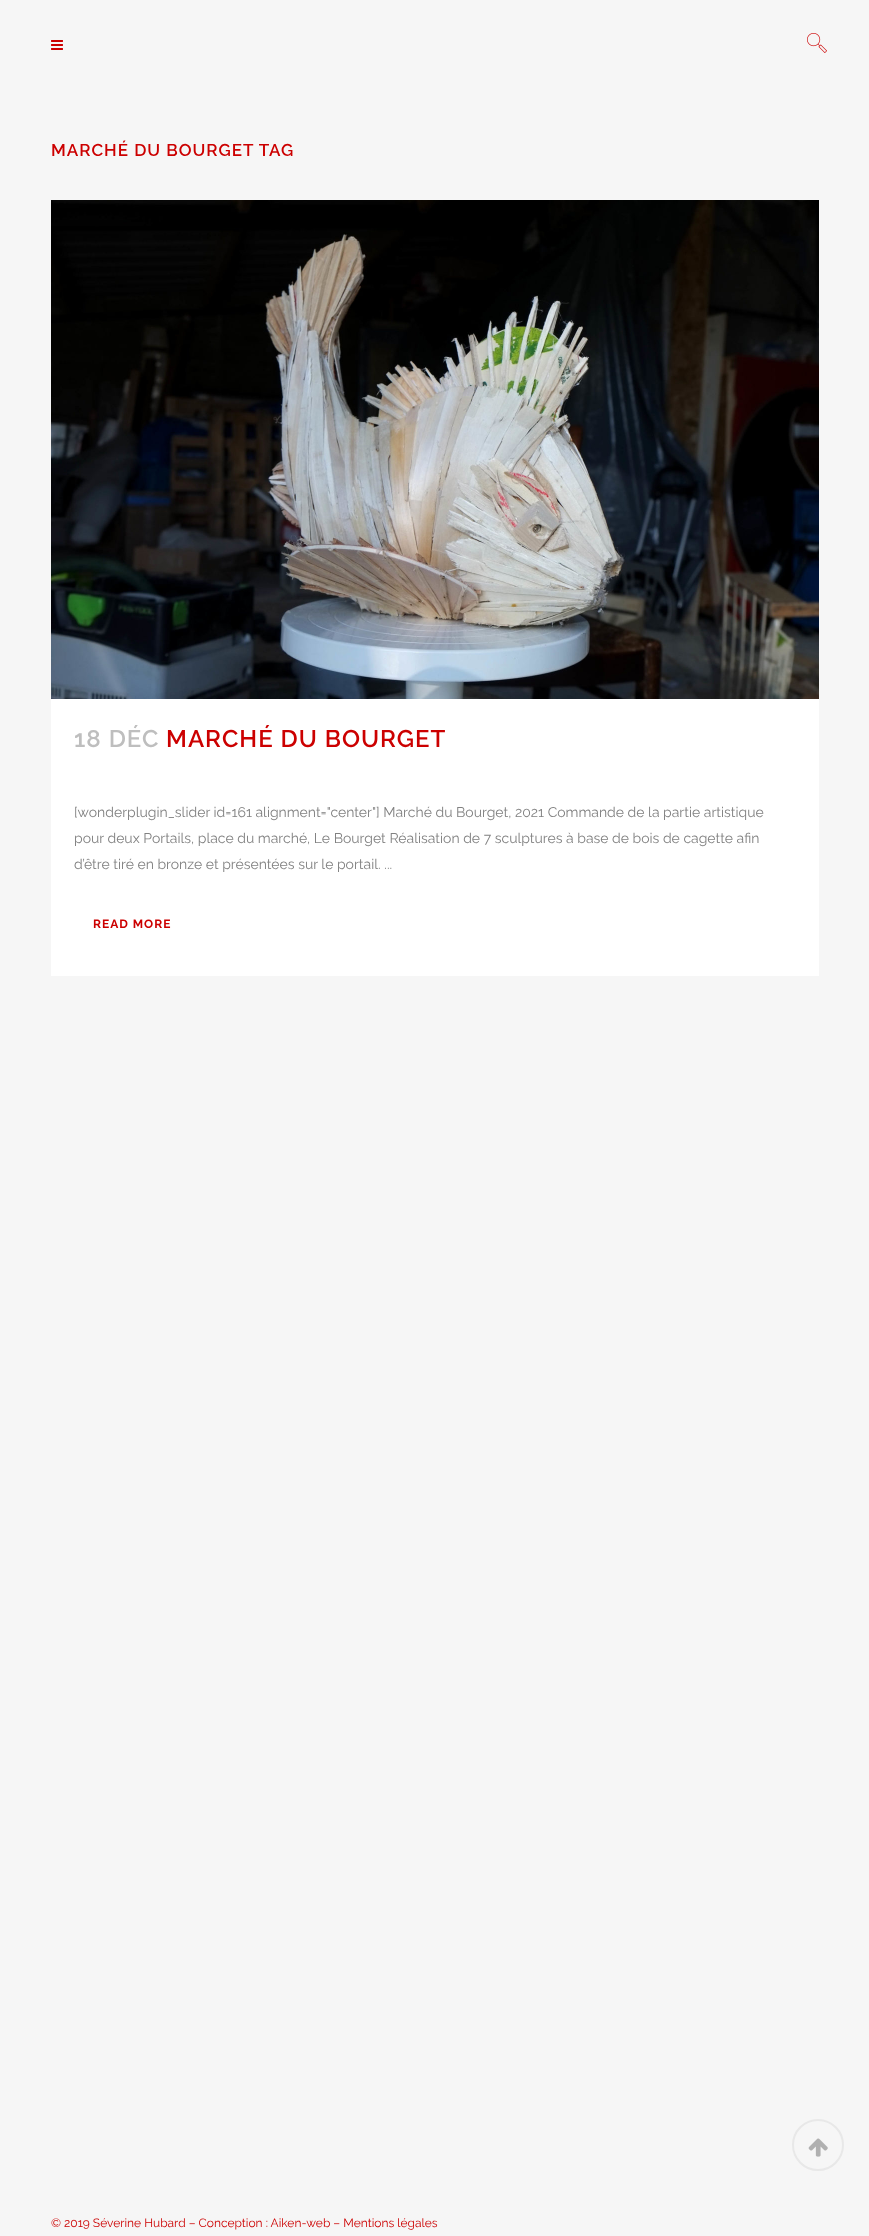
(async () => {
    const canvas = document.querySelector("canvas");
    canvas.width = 869;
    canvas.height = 2236;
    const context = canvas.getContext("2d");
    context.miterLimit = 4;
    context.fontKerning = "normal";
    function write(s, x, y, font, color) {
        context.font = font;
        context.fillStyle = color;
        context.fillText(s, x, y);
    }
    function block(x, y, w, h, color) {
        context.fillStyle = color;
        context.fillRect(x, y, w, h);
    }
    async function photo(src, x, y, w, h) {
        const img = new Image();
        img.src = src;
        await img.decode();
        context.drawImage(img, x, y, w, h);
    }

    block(0, 0, 869, 2236, "rgb(246, 246, 246)");
    await photo("media/1.png", 51, 40, 12, 10);
    await photo("media/2.png", 807, 33, 20, 20);
    context.letterSpacing = "1px";
    write("MARCHÉ DU BOURGET TAG", 51, 156, "600 17px Raleway", "rgb(204, 0, 0)");
    await photo("media/3.png", 51, 200, 768, 499);
    block(51, 699, 768, 277, "rgb(255, 255, 255)");
    write("18 DÉC", 74, 747, "600 24px Raleway", "rgb(190, 190, 190)");
    write("MARCHÉ DU BOURGET", 166, 747, "600 24px Raleway", "rgb(204, 0, 0)");
    context.letterSpacing = "0px";
    write("[wonderplugin_slider id=161 alignment=\"center\"] Marché du Bourget, 2021 Commande de la partie artistique", 74, 817, "14px Raleway", "rgb(129, 129, 129)");
    write("pour deux Portails, place du marché, Le Bourget Réalisation de 7 sculptures à base de bois de cagette afin", 74, 843, "14px Raleway", "rgb(129, 129, 129)");
    write("d’être tiré en bronze et présentées sur le portail. ...", 74, 869, "14px Raleway", "rgb(129, 129, 129)");
    context.letterSpacing = "1px";
    write("READ MORE", 93, 928, "bold 12px Raleway", "rgb(204, 0, 0)");
    context.beginPath();
    context.arc(818, 2145, 25, 0, Math.PI * 2);
    context.strokeStyle = "rgb(232, 232, 232)";
    context.lineWidth = 2;
    context.stroke();
    await photo("media/4.png", 808, 2138, 20, 19);
    context.letterSpacing = "0px";
    write("© 2019 Séverine Hubard – Conception : Aiken-web – Mentions légales", 51, 2227, "12px Raleway", "rgb(204, 0, 0)");
})();
